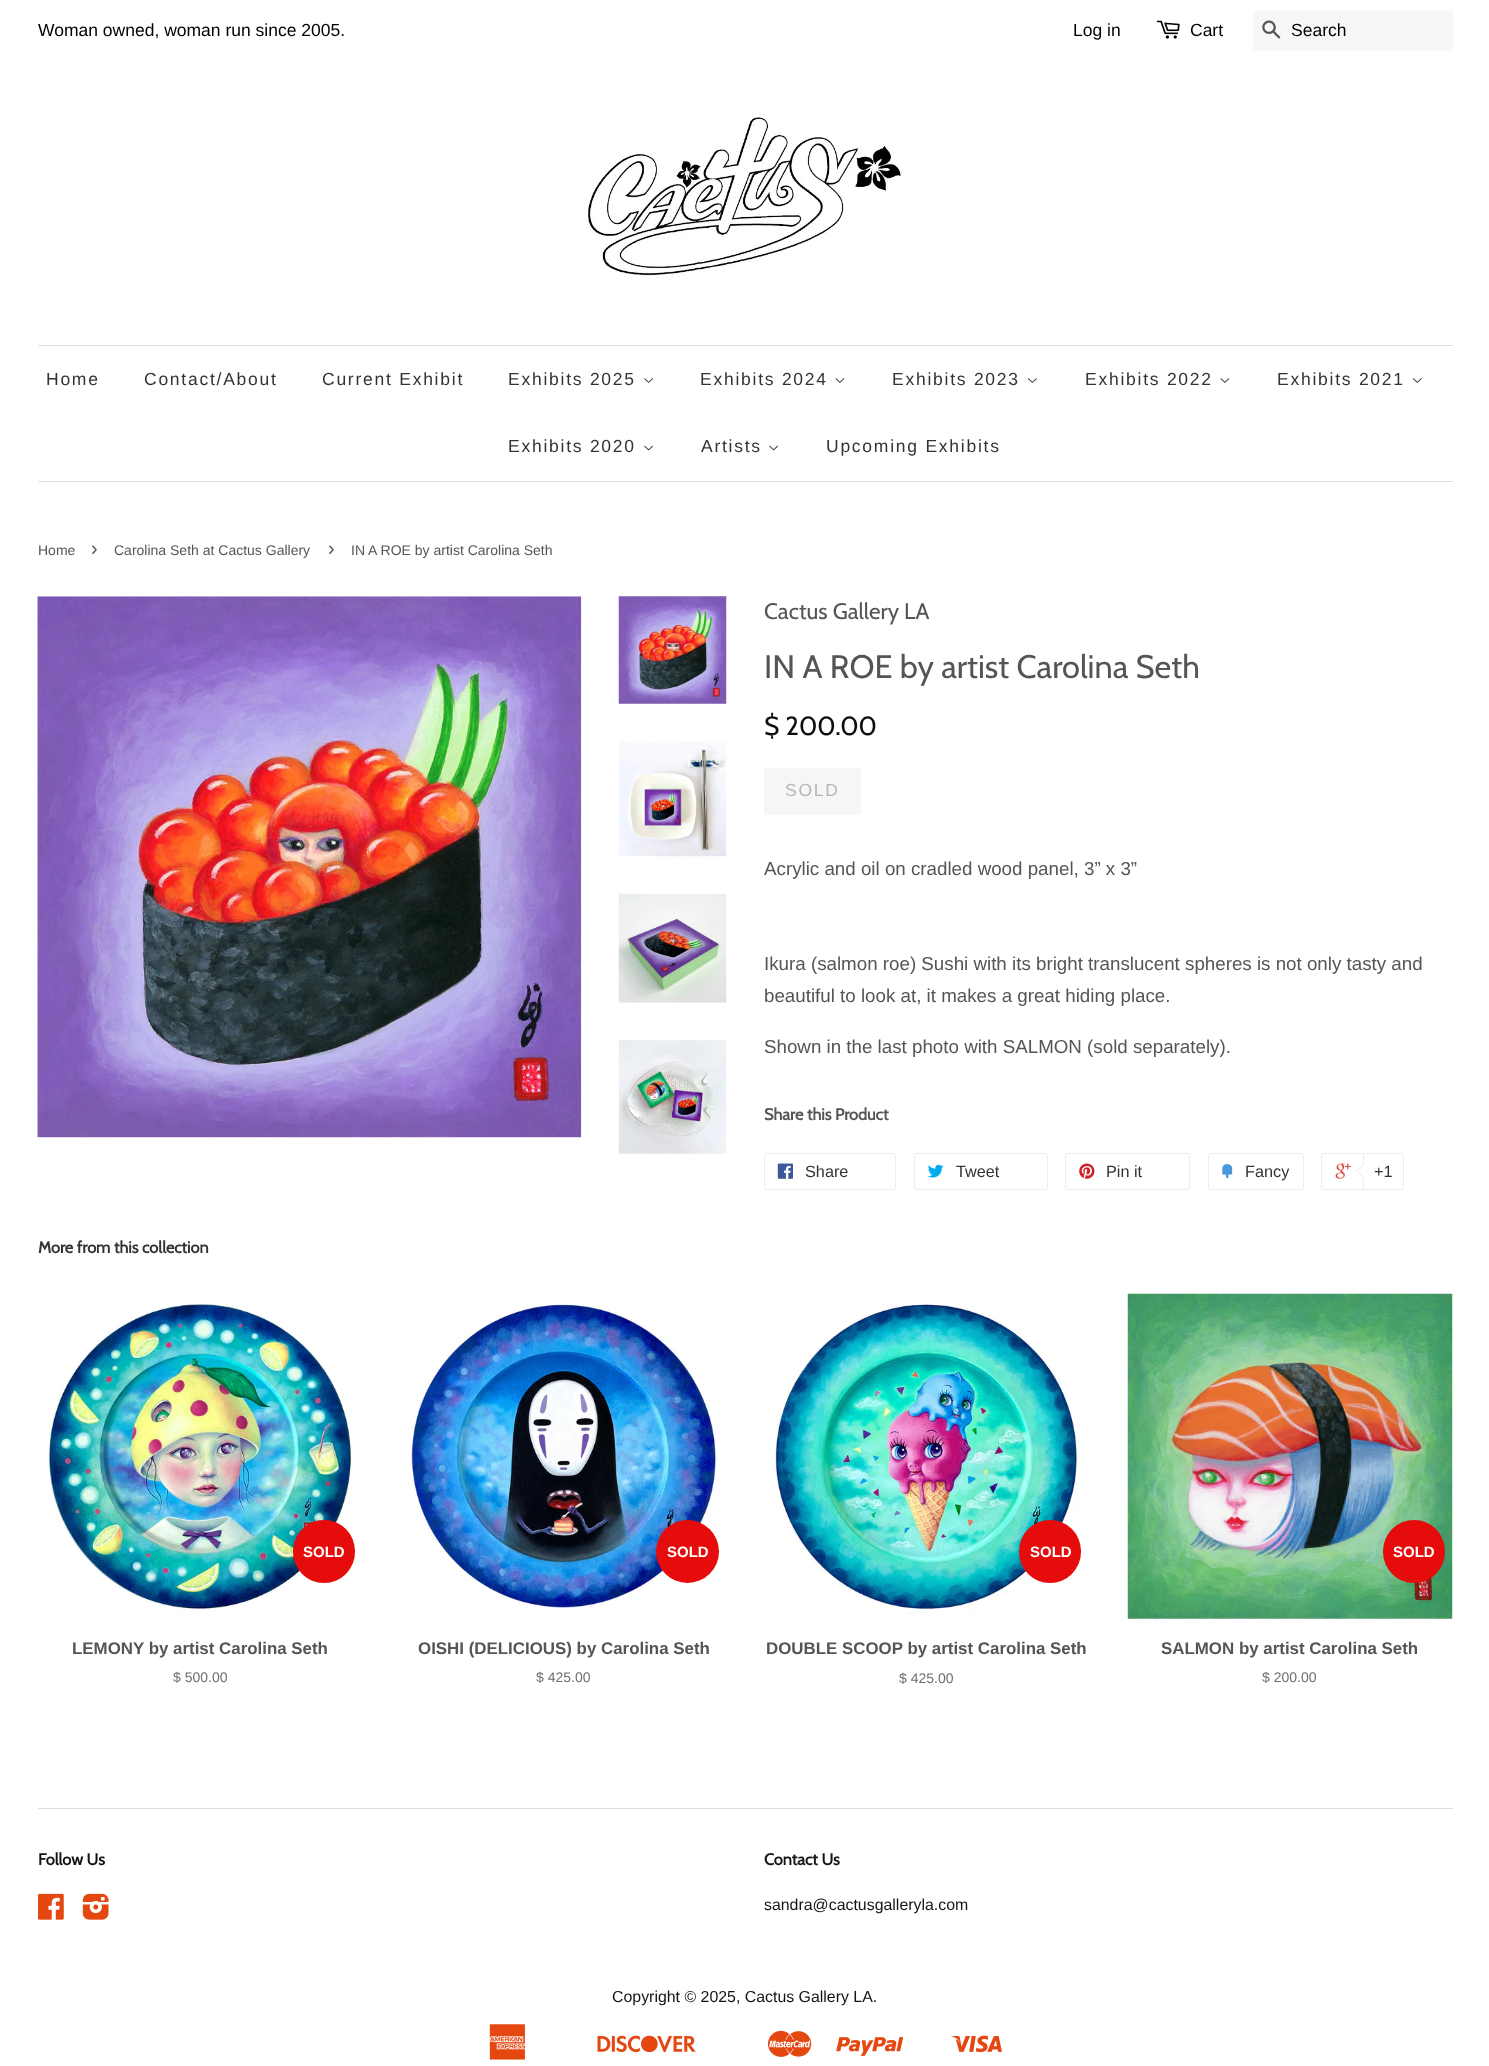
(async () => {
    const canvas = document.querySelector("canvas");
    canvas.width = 1489;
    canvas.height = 2066;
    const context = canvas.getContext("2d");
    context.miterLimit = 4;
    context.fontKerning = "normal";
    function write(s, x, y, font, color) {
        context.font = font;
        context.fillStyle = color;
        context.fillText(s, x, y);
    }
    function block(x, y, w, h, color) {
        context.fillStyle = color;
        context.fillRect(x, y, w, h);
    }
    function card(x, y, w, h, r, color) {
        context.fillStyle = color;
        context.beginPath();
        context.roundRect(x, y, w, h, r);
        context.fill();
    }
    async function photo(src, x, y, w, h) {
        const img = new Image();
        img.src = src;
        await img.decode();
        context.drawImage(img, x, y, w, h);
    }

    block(0, 0, 1489, 2066, "rgb(255, 255, 255)");
    write("Woman owned, woman run since 2005.", 38, 36, "17.5px Liberation Sans", "rgb(0, 0, 0)");
    write("Log in", 1073, 36, "17.5px Liberation Sans", "rgb(0, 0, 0)");
    await photo("media/1.png", 1156, 20, 24, 19);
    write("Cart", 1190, 36, "17.5px Liberation Sans", "rgb(0, 0, 0)");
    card(1253, 11, 200, 40, 2.5, "rgb(247, 247, 247)");
    await photo("media/2.png", 1262, 20, 19, 19);
    write("Search", 1291, 36, "17.5px Liberation Sans", "rgb(0, 0, 0)");
    await photo("media/3.png", 588, 117, 314, 160);
    block(38, 345, 1415, 1, "rgb(221, 221, 221)");
    block(38, 481, 1415, 1, "rgb(221, 221, 221)");
    context.letterSpacing = "1.75px";
    write("Home", 46, 385, "17.5px Liberation Sans", "rgb(51, 51, 51)");
    write("Contact/About", 144, 385, "17.5px Liberation Sans", "rgb(51, 51, 51)");
    write("Current Exhibit", 322, 385, "17.5px Liberation Sans", "rgb(51, 51, 51)");
    write("Exhibits 2025", 508, 385, "17.5px Liberation Sans", "rgb(51, 51, 51)");
    await photo("media/4.png", 644, 378, 9, 5);
    write("Exhibits 2024", 700, 385, "17.5px Liberation Sans", "rgb(51, 51, 51)");
    await photo("media/5.png", 835, 378, 10, 5);
    write("Exhibits 2023", 892, 385, "17.5px Liberation Sans", "rgb(51, 51, 51)");
    await photo("media/6.png", 1028, 378, 9, 5);
    write("Exhibits 2022", 1085, 385, "17.5px Liberation Sans", "rgb(51, 51, 51)");
    await photo("media/5.png", 1220, 378, 10, 5);
    write("Exhibits 2021", 1277, 385, "17.5px Liberation Sans", "rgb(51, 51, 51)");
    await photo("media/6.png", 1413, 378, 9, 5);
    write("Exhibits 2020", 508, 452, "17.5px Liberation Sans", "rgb(51, 51, 51)");
    await photo("media/7.png", 644, 445, 9, 6);
    write("Artists", 701, 452, "17.5px Liberation Sans", "rgb(51, 51, 51)");
    await photo("media/7.png", 769, 445, 9, 6);
    write("Upcoming Exhibits", 826, 452, "17.5px Liberation Sans", "rgb(51, 51, 51)");
    context.letterSpacing = "0px";
    write("Home", 38, 555, "14px Liberation Sans", "rgb(85, 85, 85)");
    write("›", 91, 555, "20px Liberation Sans", "rgb(85, 85, 85)");
    write("Carolina Seth at Cactus Gallery", 114, 555, "14px Liberation Sans", "rgb(85, 85, 85)");
    write("›", 328, 555, "20px Liberation Sans", "rgb(85, 85, 85)");
    write("IN A ROE by artist Carolina Seth", 351, 555, "14px Liberation Sans", "rgb(85, 85, 85)");
    await photo("media/8.png", 37, 596, 545, 542);
    await photo("media/9.png", 618, 596, 109, 108);
    await photo("media/10.png", 619, 741, 108, 116);
    await photo("media/11.png", 618, 893, 109, 110);
    await photo("media/12.png", 618, 1040, 109, 114);
    write("Cactus Gallery LA", 764, 619, "22.5px Cabin", "rgb(85, 85, 85)");
    write("IN A ROE by artist Carolina Seth", 764, 678, "32.5px Cabin", "rgb(85, 85, 85)");
    write("$ 200.00", 764, 735, "26.25px Cabin", "rgb(12, 15, 13)");
    card(764, 768, 97, 47, 2.5, "rgb(246, 246, 246)");
    context.letterSpacing = "1.75px";
    write("SOLD", 785, 796, "17.5px Liberation Sans", "rgb(182, 182, 182)");
    context.letterSpacing = "0px";
    write("Acrylic and oil on cradled wood panel, 3” x 3”", 764, 875, "18.75px Liberation Sans", "rgb(85, 85, 85)");
    write("Ikura (salmon roe) Sushi with its bright translucent spheres is not only tasty and", 764, 970, "18.75px Liberation Sans", "rgb(85, 85, 85)");
    write("beautiful to look at, it makes a great hiding place.", 764, 1002, "18.75px Liberation Sans", "rgb(85, 85, 85)");
    write("Shown in the last photo with SALMON (sold separately).", 764, 1053, "18.75px Liberation Sans", "rgb(85, 85, 85)");
    write("Share this Product", 764, 1120, "bold 16.25px Cabin", "rgb(85, 85, 85)");
    context.beginPath();
    context.roundRect(764.5, 1153.5, 131, 36, 2);
    context.strokeStyle = "rgb(236, 236, 236)";
    context.stroke();
    await photo("media/13.png", 777, 1163, 16, 16);
    write("Share", 805, 1177, "16.25px Liberation Sans", "rgb(51, 51, 51)");
    context.beginPath();
    context.roundRect(914.5, 1153.5, 133, 36, 2);
    context.stroke();
    await photo("media/14.png", 928, 1164, 16, 14);
    write("Tweet", 956, 1177, "16.25px Liberation Sans", "rgb(51, 51, 51)");
    context.beginPath();
    context.roundRect(1065.5, 1153.5, 124, 36, 2);
    context.stroke();
    await photo("media/15.png", 1079, 1163, 16, 16);
    write("Pin it", 1106, 1177, "16.25px Liberation Sans", "rgb(51, 51, 51)");
    context.beginPath();
    context.roundRect(1208.5, 1153.5, 95, 36, 2);
    context.stroke();
    await photo("media/16.png", 1222, 1164, 11, 15);
    write("Fancy", 1245, 1177, "16.25px Liberation Sans", "rgb(51, 51, 51)");
    context.beginPath();
    context.roundRect(1321.5, 1153.5, 81, 36, 2);
    context.stroke();
    await photo("media/17.png", 1335, 1163, 16, 16);
    context.fillStyle = "rgb(255, 255, 255)";
    context.beginPath();
    context.roundRect(1363.5, 1153.5, 40, 36, [0, 2, 2, 0]);
    context.fill();
    context.stroke();
    context.fillStyle = "rgb(236, 236, 236)";
    context.beginPath();
    context.moveTo(1364, 1164);
    context.lineTo(1364, 1179);
    context.lineTo(1356, 1171);
    context.closePath();
    context.fill();
    context.fillStyle = "rgb(255, 255, 255)";
    context.beginPath();
    context.moveTo(1365, 1164);
    context.lineTo(1365, 1179);
    context.lineTo(1357.5, 1171);
    context.closePath();
    context.fill();
    write("+1", 1374, 1177, "16.25px Liberation Sans", "rgb(51, 51, 51)");
    write("More from this collection", 38, 1253, "bold 16.25px Cabin", "rgb(51, 51, 51)");
    await photo("media/18.png", 48, 1303, 305, 309);
    card(293, 1520, 62, 63, 31, "rgb(230, 12, 12)");
    write("SOLD", 303, 1557, "bold 15px Liberation Sans", "rgb(255, 255, 255)");
    write("LEMONY by artist Carolina Seth", 72, 1654, "bold 16.9px Liberation Sans", "rgb(85, 85, 85)");
    write("$ 500.00", 173, 1682, "14px Liberation Sans", "rgb(110, 110, 110)");
    await photo("media/19.png", 410, 1304, 307, 307);
    context.fillStyle = "rgb(230, 12, 12)";
    context.beginPath();
    context.arc(687.5, 1551.5, 31.5, 0, Math.PI * 2);
    context.fill();
    write("SOLD", 667, 1557, "bold 15px Liberation Sans", "rgb(255, 255, 255)");
    write("OISHI (DELICIOUS) by Carolina Seth", 418, 1654, "bold 16.9px Liberation Sans", "rgb(85, 85, 85)");
    write("$ 425.00", 536, 1682, "14px Liberation Sans", "rgb(110, 110, 110)");
    await photo("media/20.png", 775, 1301, 303, 313);
    card(1019, 1520, 62, 63, 31, "rgb(230, 12, 12)");
    write("SOLD", 1030, 1557, "bold 15px Liberation Sans", "rgb(255, 255, 255)");
    write("DOUBLE SCOOP by artist Carolina Seth", 766, 1654, "bold 16.9px Liberation Sans", "rgb(85, 85, 85)");
    write("$ 425.00", 899, 1683, "14px Liberation Sans", "rgb(110, 110, 110)");
    await photo("media/21.png", 1127, 1293, 326, 326);
    card(1383, 1520, 62, 63, 31, "rgb(230, 12, 12)");
    write("SOLD", 1393, 1557, "bold 15px Liberation Sans", "rgb(255, 255, 255)");
    write("SALMON by artist Carolina Seth", 1161, 1654, "bold 16.9px Liberation Sans", "rgb(85, 85, 85)");
    write("$ 200.00", 1262, 1682, "14px Liberation Sans", "rgb(110, 110, 110)");
    block(38, 1808, 1415, 1, "rgb(221, 221, 221)");
    write("Follow Us", 38, 1865, "bold 16.25px Cabin", "rgb(21, 19, 19)");
    await photo("media/22.png", 38, 1893, 26, 27);
    await photo("media/23.png", 82, 1893, 27, 27);
    write("Contact Us", 764, 1865, "bold 16.25px Cabin", "rgb(21, 19, 19)");
    write("sandra@cactusgalleryla.com", 764, 1910, "15.9px Liberation Sans", "rgb(21, 19, 19)");
    write("Copyright © 2025, Cactus Gallery LA.", 612, 2002, "15.9px Liberation Sans", "rgb(21, 19, 19)");
    await photo("media/24.png", 489, 2024, 37, 36);
    await photo("media/25.png", 597, 2035, 99, 18);
    await photo("media/26.png", 767, 2030, 45, 27);
    await photo("media/27.png", 836, 2037, 68, 19);
    await photo("media/28.png", 951, 2035, 51, 18);
})();
